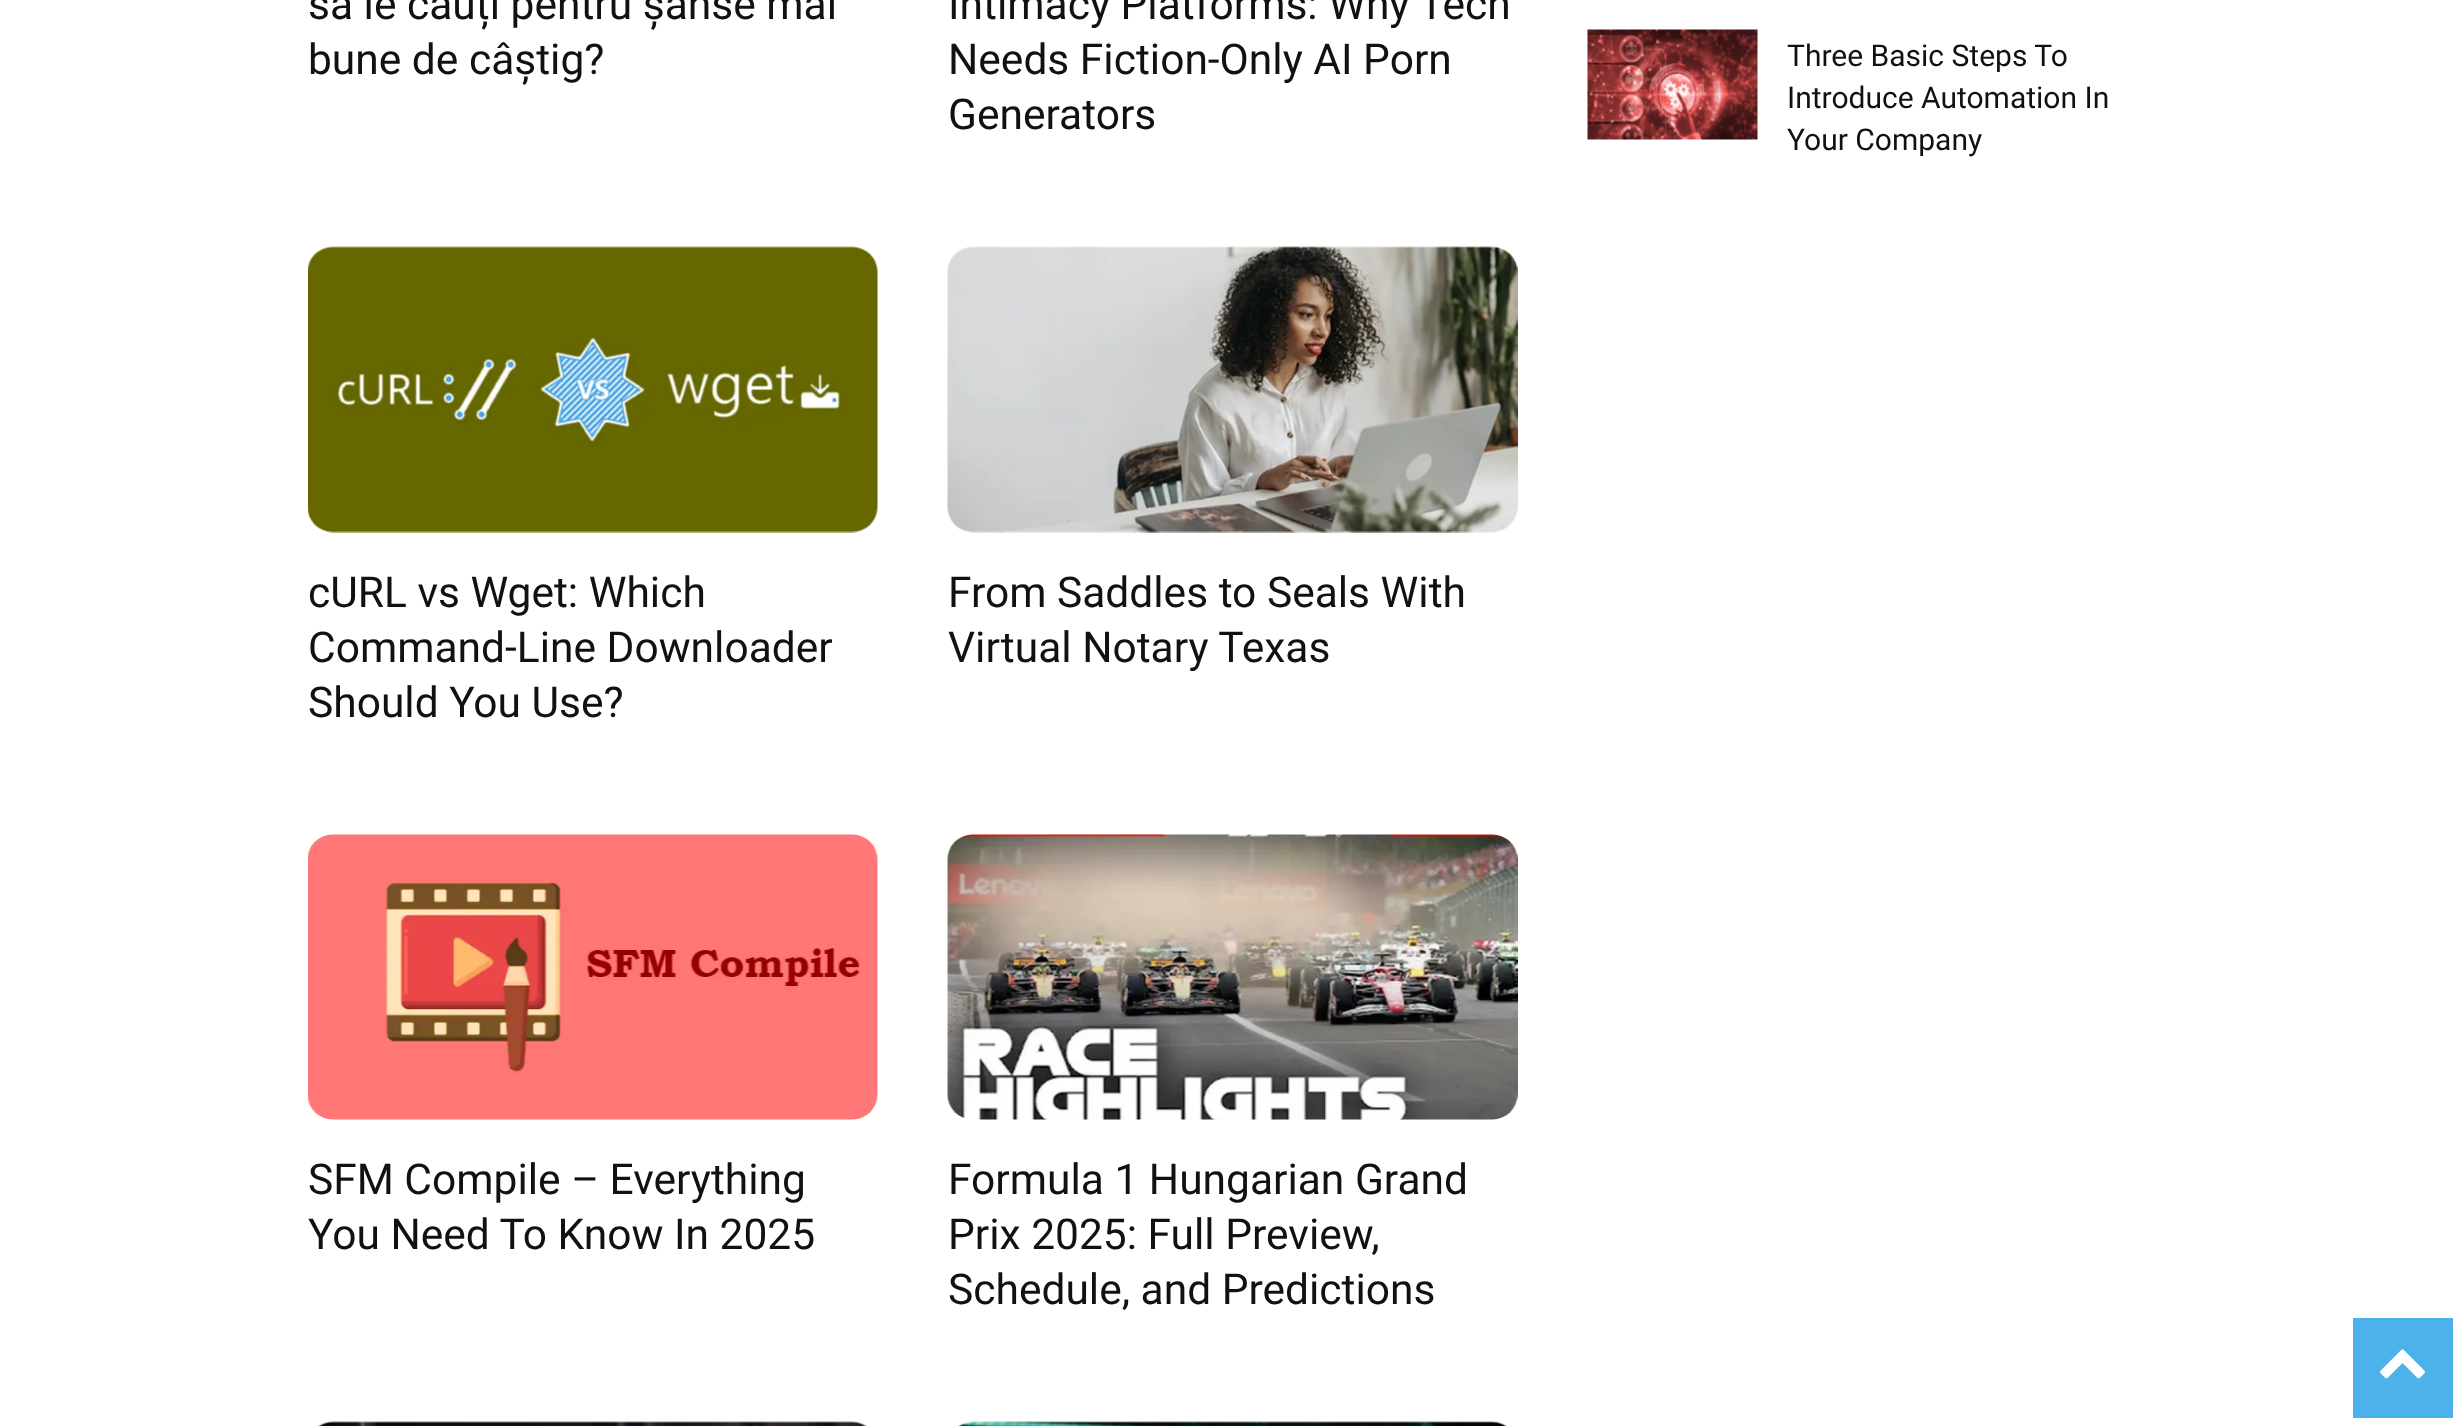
(async () => {
    const canvas = document.querySelector("canvas");
    canvas.width = 2464;
    canvas.height = 1426;
    const context = canvas.getContext("2d");
    context.miterLimit = 4;
    context.fontKerning = "normal";
    function write(s, x, y, font, color) {
        context.font = font;
        context.fillStyle = color;
        context.fillText(s, x, y);
    }
    function block(x, y, w, h, color) {
        context.fillStyle = color;
        context.fillRect(x, y, w, h);
    }
    async function photo(src, x, y, w, h) {
        const img = new Image();
        img.src = src;
        await img.decode();
        context.drawImage(img, x, y, w, h);
    }

    block(0, 0, 2464, 1426, "rgb(255, 255, 255)");
    write("să le cauți pentru șanse mai", 308, 19, "42.5px Roboto", "rgb(17, 17, 17)");
    write("bune de câștig?", 308, 74, "42.5px Roboto", "rgb(17, 17, 17)");
    write("Intimacy Platforms: Why Tech", 948, 19, "42.5px Roboto", "rgb(17, 17, 17)");
    write("Needs Fiction-Only AI Porn", 948, 74, "42.5px Roboto", "rgb(17, 17, 17)");
    write("Generators", 948, 129, "42.5px Roboto", "rgb(17, 17, 17)");
    await photo("media/1.png", 308, 246, 570, 287);
    write("cURL vs Wget: Which", 308, 607, "42.5px Roboto", "rgb(17, 17, 17)");
    write("Command-Line Downloader", 308, 662, "42.5px Roboto", "rgb(17, 17, 17)");
    write("Should You Use?", 308, 717, "42.5px Roboto", "rgb(17, 17, 17)");
    await photo("media/2.png", 947, 246, 571, 287);
    write("From Saddles to Seals With", 948, 607, "42.5px Roboto", "rgb(17, 17, 17)");
    write("Virtual Notary Texas", 948, 662, "42.5px Roboto", "rgb(17, 17, 17)");
    await photo("media/3.png", 308, 834, 570, 286);
    write("SFM Compile – Everything", 308, 1194, "42.5px Roboto", "rgb(17, 17, 17)");
    write("You Need To Know In 2025", 308, 1249, "42.5px Roboto", "rgb(17, 17, 17)");
    await photo("media/4.png", 947, 834, 571, 286);
    write("Formula 1 Hungarian Grand", 948, 1194, "42.5px Roboto", "rgb(17, 17, 17)");
    write("Prix 2025: Full Preview,", 948, 1249, "42.5px Roboto", "rgb(17, 17, 17)");
    write("Schedule, and Predictions", 948, 1304, "42.5px Roboto", "rgb(17, 17, 17)");
    await photo("media/5.png", 318, 1421, 549, 5);
    await photo("media/6.png", 958, 1421, 549, 5);
    await photo("media/7.png", 1587, 29, 171, 111);
    write("Three Basic Steps To", 1787, 66, "30px Roboto", "rgb(17, 17, 17)");
    write("Introduce Automation In", 1787, 108, "30px Roboto", "rgb(17, 17, 17)");
    write("Your Company", 1787, 150, "30px Roboto", "rgb(17, 17, 17)");
    block(2353, 1318, 100, 100, "rgb(77, 178, 236)");
    await photo("media/8.png", 2380, 1349, 45, 30);
})();
